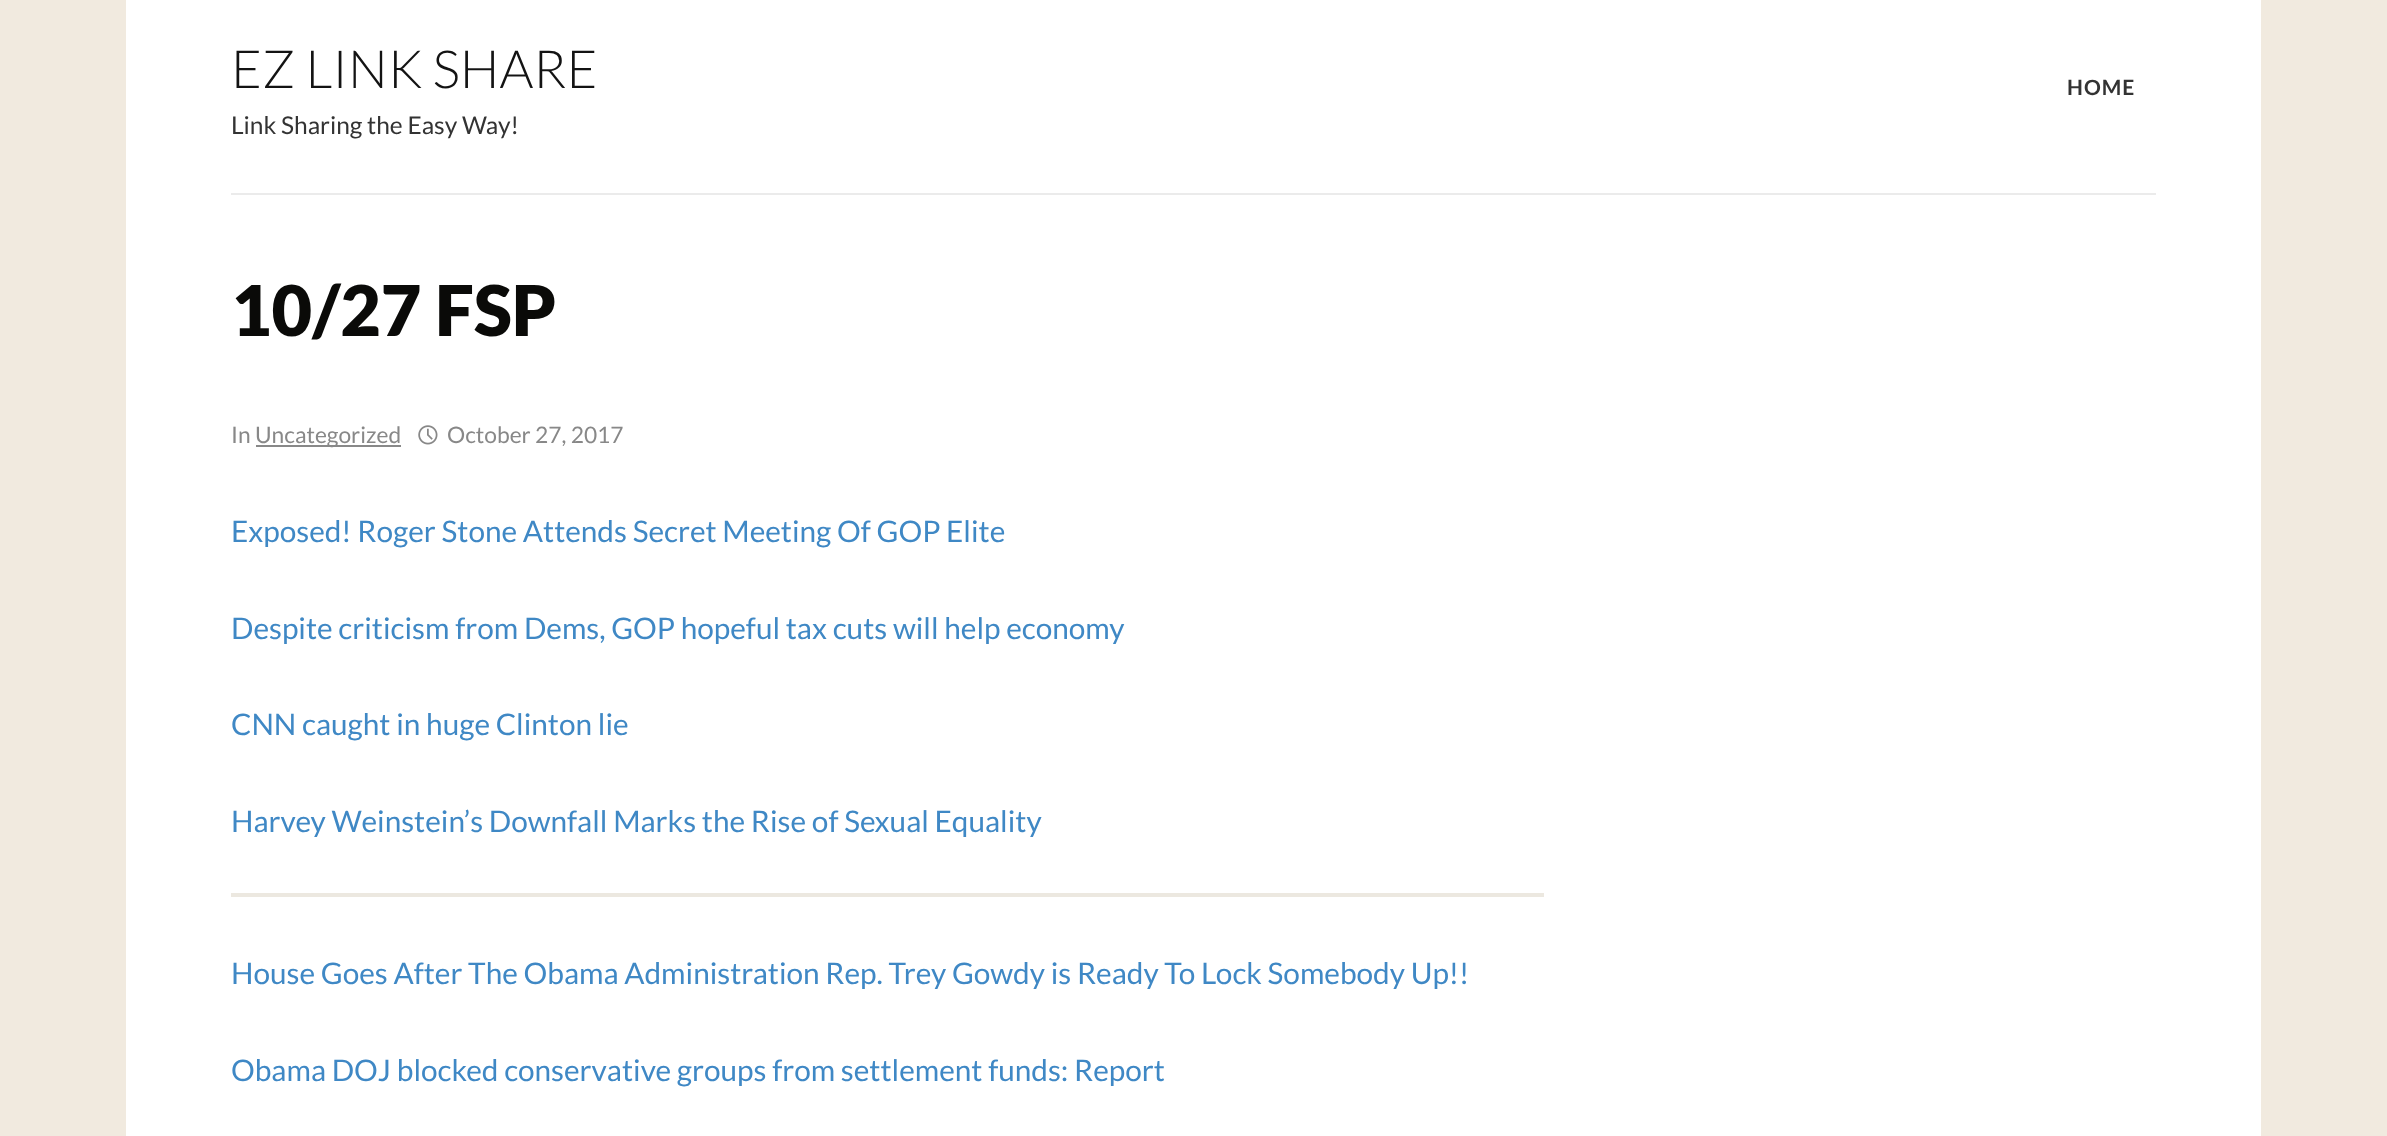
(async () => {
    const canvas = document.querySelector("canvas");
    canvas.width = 2387;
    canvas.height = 1136;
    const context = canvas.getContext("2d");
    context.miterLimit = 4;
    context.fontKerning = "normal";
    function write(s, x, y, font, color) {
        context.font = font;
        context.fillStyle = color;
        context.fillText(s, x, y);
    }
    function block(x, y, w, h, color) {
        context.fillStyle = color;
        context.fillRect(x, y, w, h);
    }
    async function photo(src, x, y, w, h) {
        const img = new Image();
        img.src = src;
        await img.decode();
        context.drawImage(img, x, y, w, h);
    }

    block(0, 0, 2387, 1136, "rgb(241, 234, 223)");
    block(126, 0, 2135, 1136, "rgb(255, 255, 255)");
    write("EZ LINK SHARE", 231, 88, "300 52.5px Lato", "rgb(19, 19, 19)");
    write("Link Sharing the Easy Way!", 231, 134, "24.5px Lato", "rgb(51, 51, 51)");
    context.letterSpacing = "1px";
    write("HOME", 2067, 95, "bold 21px Lato", "rgb(51, 51, 51)");
    block(231, 193, 1925, 2, "rgb(235, 235, 235)");
    context.letterSpacing = "0px";
    write("10/27 FSP", 231, 336, "900 70px Lato", "rgb(10, 10, 8)");
    write("In", 231, 443, "22.75px Lato", "rgb(136, 136, 136)");
    block(256, 445, 145, 2, "rgb(136, 136, 136)");
    write("Uncategorized", 255, 443, "22.75px Lato", "rgb(136, 136, 136)");
    await photo("media/1.png", 418, 425, 20, 20);
    write("October 27, 2017", 447, 443, "22.75px Lato", "rgb(136, 136, 136)");
    write("Exposed! Roger Stone Attends Secret Meeting Of GOP Elite", 231, 542, "29.75px Lato", "rgb(63, 136, 197)");
    write("Despite criticism from Dems, GOP hopeful tax cuts will help economy", 231, 639, "29.75px Lato", "rgb(63, 136, 197)");
    write("CNN caught in huge Clinton lie", 231, 735, "29.75px Lato", "rgb(63, 136, 197)");
    write("Harvey Weinstein’s Downfall Marks the Rise of Sexual Equality", 231, 832, "29.75px Lato", "rgb(63, 136, 197)");
    block(231, 893, 1313, 4, "rgb(236, 232, 224)");
    write("House Goes After The Obama Administration Rep. Trey Gowdy is Ready To Lock Somebody Up!!", 231, 984, "29.75px Lato", "rgb(63, 136, 197)");
    write("Obama DOJ blocked conservative groups from settlement funds: Report", 231, 1081, "29.75px Lato", "rgb(63, 136, 197)");
})();
